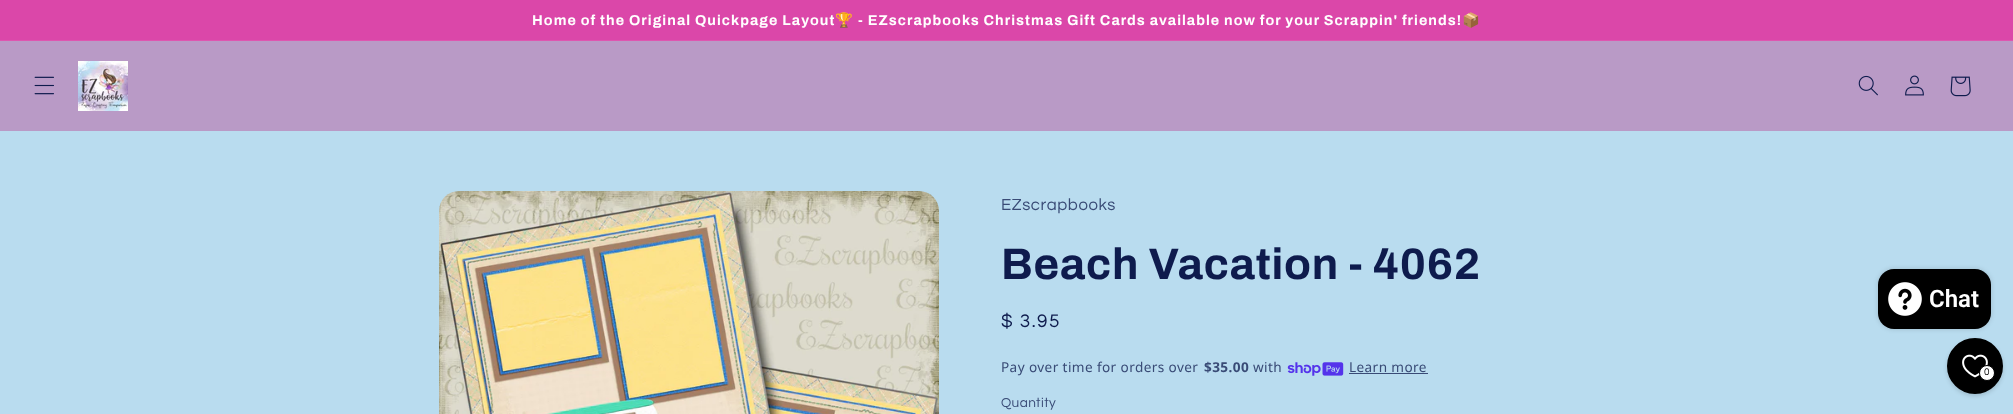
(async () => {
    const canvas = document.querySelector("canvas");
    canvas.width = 2013;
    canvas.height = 414;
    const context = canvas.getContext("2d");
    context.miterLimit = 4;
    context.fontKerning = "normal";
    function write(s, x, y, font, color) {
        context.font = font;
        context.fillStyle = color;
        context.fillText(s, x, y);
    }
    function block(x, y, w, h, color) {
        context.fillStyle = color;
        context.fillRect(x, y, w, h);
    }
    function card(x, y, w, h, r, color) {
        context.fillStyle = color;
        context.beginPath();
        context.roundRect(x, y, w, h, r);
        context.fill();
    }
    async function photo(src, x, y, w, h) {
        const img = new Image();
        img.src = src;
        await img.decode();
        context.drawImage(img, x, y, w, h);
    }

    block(0, 0, 2013, 414, "rgb(185, 220, 239)");
    block(0, 0, 2013, 40, "rgb(219, 71, 169)");
    block(0, 40, 2013, 1, "rgb(222, 86, 176)");
    context.letterSpacing = "1.05px";
    write("Home of the Original Quickpage Layout", 532, 25, "bold 14.3px Archivo", "rgb(255, 255, 255)");
    write("🏆", 835, 25, "bold 14.3px Noto Color Emoji", "rgb(255, 255, 255)");
    write("- EZscrapbooks Christmas Gift Cards available now for your Scrappin' friends!", 858, 25, "bold 14.3px Archivo", "rgb(255, 255, 255)");
    write("📦", 1462, 25, "bold 14.3px Noto Color Emoji", "rgb(255, 255, 255)");
    block(0, 41, 2013, 90, "rgb(185, 154, 198)");
    await photo("media/1.png", 34, 76, 20, 19);
    await photo("media/2.png", 78, 61, 50, 50);
    await photo("media/3.png", 1858, 75, 20, 21);
    await photo("media/4.png", 1905, 75, 19, 21);
    await photo("media/5.png", 1950, 76, 21, 21);
    await photo("media/6.png", 439, 191, 500, 223);
    context.letterSpacing = "0.6px";
    write("EZscrapbooks", 1001, 210, "16.75px Questrial", "rgb(57, 75, 118)");
    context.letterSpacing = "0.7px";
    write("Beach Vacation - 4062", 1001, 279, "bold 44px Archivo", "rgb(14, 27, 77)");
    context.letterSpacing = "1.5px";
    write("$ 3.95", 1001, 327, "19px Questrial", "rgb(14, 27, 77)");
    context.letterSpacing = "0.4px";
    write("Pay over time for orders over", 1001, 372, "13.6px Noto Sans", "rgb(57, 75, 118)");
    write("$35.00", 1204, 372, "bold 13.6px Noto Sans", "rgb(57, 75, 118)");
    write("with", 1253, 372, "13.6px Noto Sans", "rgb(57, 75, 118)");
    await photo("media/7.png", 1287, 362, 57, 14);
    write("Learn more", 1349, 372, "13.6px Noto Sans", "rgb(57, 75, 118)");
    block(1349, 373, 79, 1, "rgb(57, 75, 118)");
    write("Quantity", 1001, 407, "13.6px Questrial", "rgb(57, 75, 118)");
    context.fillStyle = "rgba(0, 0, 0, 0.15)";
    context.filter = "blur(2.5px)";
    context.beginPath();
    context.roundRect(1878, 269, 113, 60, 16);
    context.fill();
    context.filter = "none";
    card(1878, 269, 113, 60, 16, "rgb(0, 0, 0)");
    await photo("media/8.png", 1888, 282, 34, 34);
    context.letterSpacing = "0px";
    write("Chat", 1929, 307, "600 24px Roboto", "rgb(255, 255, 255)");
    context.fillStyle = "rgba(0, 0, 0, 0.15)";
    context.filter = "blur(2px)";
    context.beginPath();
    context.roundRect(1947, 340, 56, 56, 28);
    context.fill();
    context.filter = "none";
    context.fillStyle = "rgb(0, 0, 0)";
    context.beginPath();
    context.arc(1975, 366, 27, 0, Math.PI * 2);
    context.fill();
    context.strokeStyle = "rgb(0, 0, 0)";
    context.lineWidth = 2;
    context.stroke();
    await photo("media/9.png", 1962, 354, 26, 24);
    context.fillStyle = "rgb(255, 255, 255)";
    context.beginPath();
    context.arc(1987, 373, 7.5, 0, Math.PI * 2);
    context.fill();
    context.lineWidth = 1;
    context.stroke();
    context.letterSpacing = "0.6px";
    write("0", 1984, 375, "10px Questrial", "rgb(0, 0, 0)");
})();
